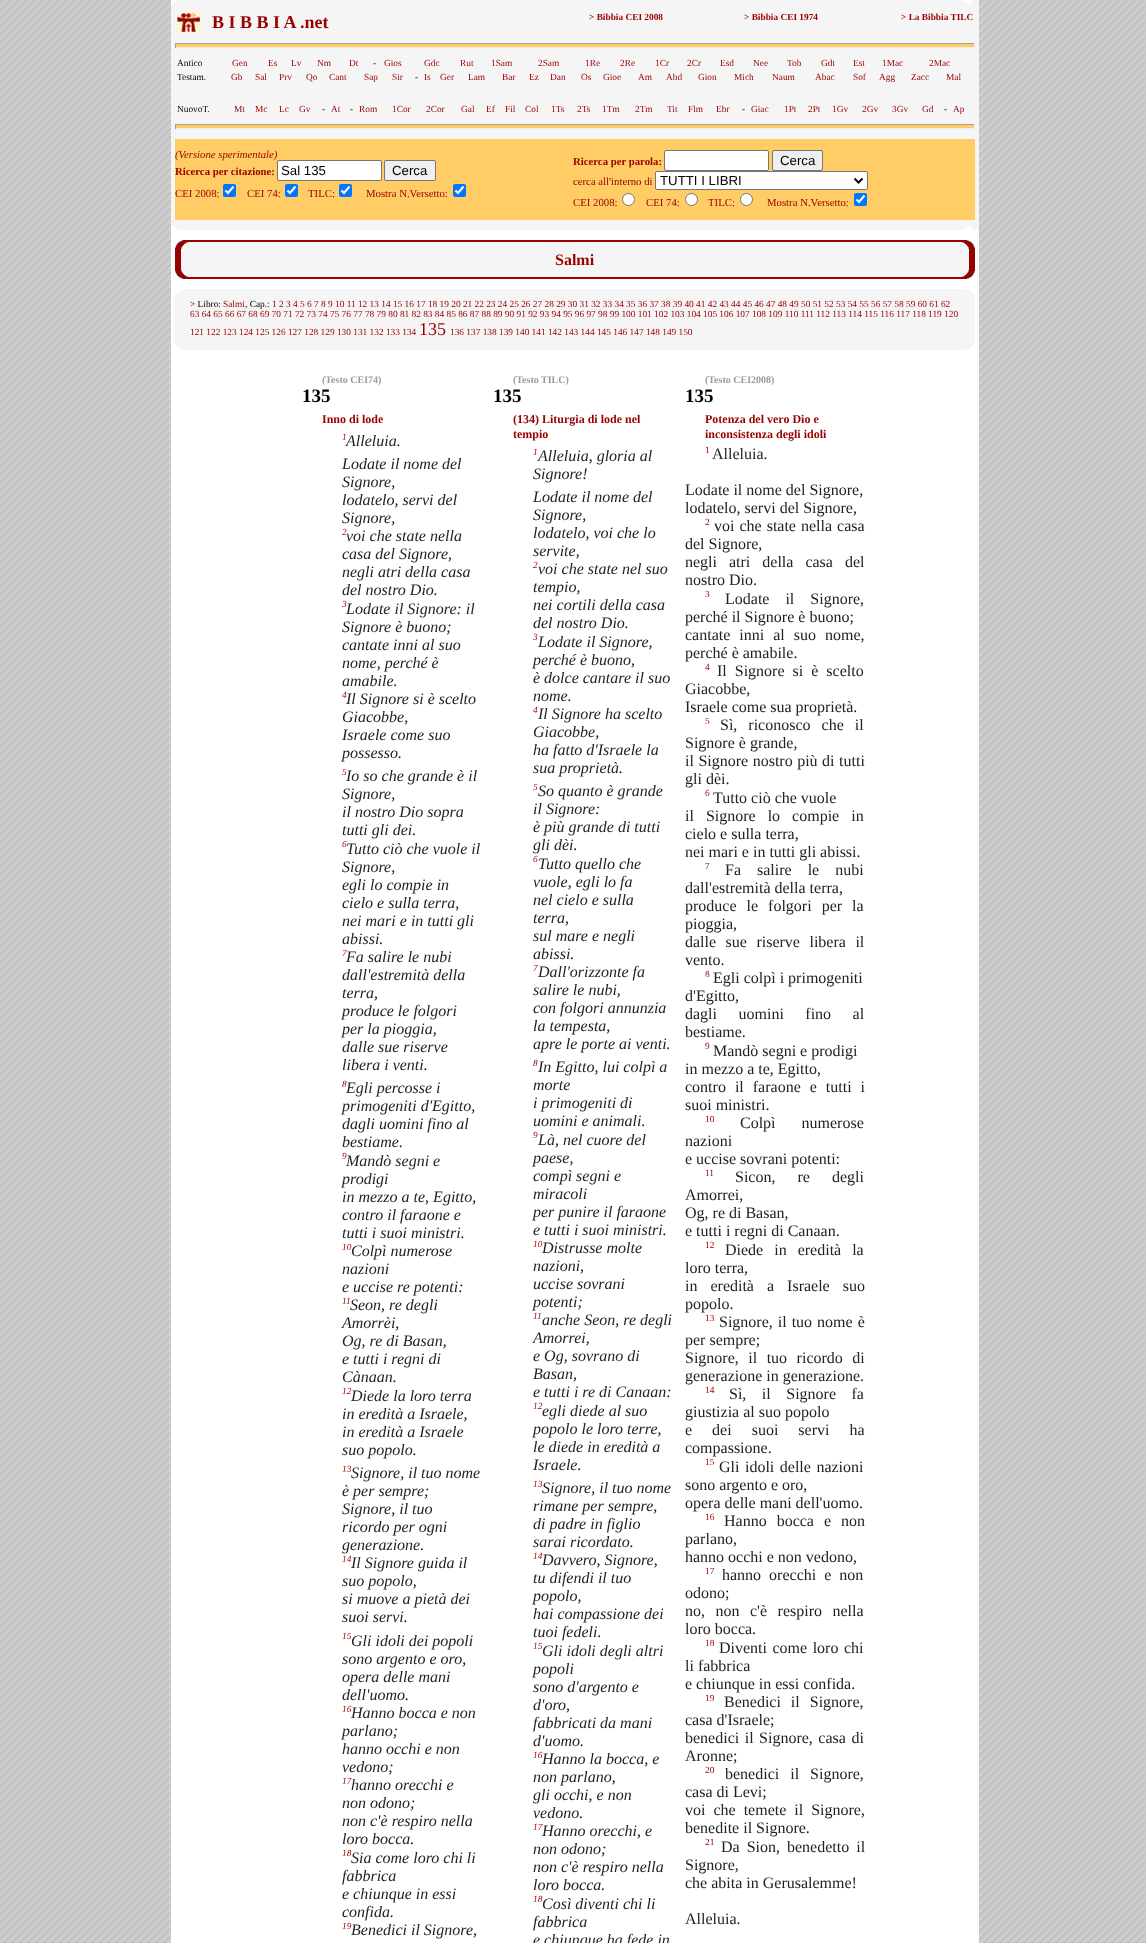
(async () => {
    const canvas = document.querySelector("canvas");
    canvas.width = 1146;
    canvas.height = 1943;
    const context = canvas.getContext("2d");
    context.miterLimit = 4;
    context.fontKerning = "normal";
    function write(s, x, y, font, color) {
        context.font = font;
        context.fillStyle = color;
        context.fillText(s, x, y);
    }
    function block(x, y, w, h, color) {
        context.fillStyle = color;
        context.fillRect(x, y, w, h);
    }
    function card(x, y, w, h, r, color) {
        context.fillStyle = color;
        context.beginPath();
        context.roundRect(x, y, w, h, r);
        context.fill();
    }
    async function photo(src, x, y, w, h) {
        const img = new Image();
        img.src = src;
        await img.decode();
        context.drawImage(img, x, y, w, h);
    }

    block(0, 0, 1146, 1943, "rgb(255, 255, 255)");
    await photo("media/1.png", 0, 0, 1146, 1943);
    block(171, 230, 808, 1713, "rgb(255, 255, 255)");
    block(171, 0, 808, 230, "rgb(245, 245, 245)");
    await photo("media/2.png", 171, 0, 800, 6);
    await photo("media/3.png", 177, 13, 23, 19);
    write("B I B B I A .net", 212, 28, "bold 18px Liberation Serif", "rgb(153, 0, 0)");
    write("> Bibbia CEI 2008", 589, 20, "bold 9.33px Liberation Serif", "rgb(153, 0, 0)");
    write("> Bibbia CEI 1974", 744, 20, "bold 9.33px Liberation Serif", "rgb(153, 0, 0)");
    write("> La Bibbia TILC", 901, 20, "bold 9.33px Liberation Serif", "rgb(153, 0, 0)");
    block(175, 44, 800, 3, "rgb(255, 204, 102)");
    block(175, 43, 800, 1, "rgb(159, 159, 159)");
    block(974, 43, 1, 5, "rgb(238, 238, 238)");
    block(175, 47, 800, 1, "rgb(238, 238, 238)");
    block(175, 43, 1, 5, "rgb(159, 159, 159)");
    write("Antico", 177, 66, "9.33px Liberation Serif", "rgb(0, 0, 0)");
    write("Gen", 232, 66, "9.33px Liberation Serif", "rgb(153, 0, 0)");
    write("Es", 268, 66, "9.33px Liberation Serif", "rgb(153, 0, 0)");
    write("Lv", 291, 66, "9.33px Liberation Serif", "rgb(153, 0, 0)");
    write("Nm", 317, 66, "9.33px Liberation Serif", "rgb(153, 0, 0)");
    write("Dt", 349, 66, "9.33px Liberation Serif", "rgb(153, 0, 0)");
    write("-", 373, 66, "9.33px Liberation Serif", "rgb(0, 0, 0)");
    write("Gios", 384, 66, "9.33px Liberation Serif", "rgb(153, 0, 0)");
    write("Gdc", 424, 66, "9.33px Liberation Serif", "rgb(153, 0, 0)");
    write("Rut", 460, 66, "9.33px Liberation Serif", "rgb(153, 0, 0)");
    write("1Sam", 491, 66, "9.33px Liberation Serif", "rgb(153, 0, 0)");
    write("2Sam", 538, 66, "9.33px Liberation Serif", "rgb(153, 0, 0)");
    write("1Re", 585, 66, "9.33px Liberation Serif", "rgb(153, 0, 0)");
    write("2Re", 620, 66, "9.33px Liberation Serif", "rgb(153, 0, 0)");
    write("1Cr", 655, 66, "9.33px Liberation Serif", "rgb(153, 0, 0)");
    write("2Cr", 687, 66, "9.33px Liberation Serif", "rgb(153, 0, 0)");
    write("Esd", 720, 66, "9.33px Liberation Serif", "rgb(153, 0, 0)");
    write("Nee", 753, 66, "9.33px Liberation Serif", "rgb(153, 0, 0)");
    write("Tob", 787, 66, "9.33px Liberation Serif", "rgb(153, 0, 0)");
    write("Gdt", 821, 66, "9.33px Liberation Serif", "rgb(153, 0, 0)");
    write("Est", 853, 66, "9.33px Liberation Serif", "rgb(153, 0, 0)");
    write("1Mac", 882, 66, "9.33px Liberation Serif", "rgb(153, 0, 0)");
    write("2Mac", 929, 66, "9.33px Liberation Serif", "rgb(153, 0, 0)");
    write("Testam.", 177, 80, "9.33px Liberation Serif", "rgb(0, 0, 0)");
    write("Gb", 231, 80, "9.33px Liberation Serif", "rgb(153, 0, 0)");
    write("Sal", 255, 80, "9.33px Liberation Serif", "rgb(153, 0, 0)");
    write("Prv", 279, 80, "9.33px Liberation Serif", "rgb(153, 0, 0)");
    write("Qo", 306, 80, "9.33px Liberation Serif", "rgb(153, 0, 0)");
    write("Cant", 329, 80, "9.33px Liberation Serif", "rgb(153, 0, 0)");
    write("Sap", 364, 80, "9.33px Liberation Serif", "rgb(153, 0, 0)");
    write("Sir", 392, 80, "9.33px Liberation Serif", "rgb(153, 0, 0)");
    write("-", 415, 80, "9.33px Liberation Serif", "rgb(0, 0, 0)");
    write("Is", 424, 80, "9.33px Liberation Serif", "rgb(153, 0, 0)");
    write("Ger", 440, 80, "9.33px Liberation Serif", "rgb(153, 0, 0)");
    write("Lam", 468, 80, "9.33px Liberation Serif", "rgb(153, 0, 0)");
    write("Bar", 502, 80, "9.33px Liberation Serif", "rgb(153, 0, 0)");
    write("Ez", 529, 80, "9.33px Liberation Serif", "rgb(153, 0, 0)");
    write("Dan", 550, 80, "9.33px Liberation Serif", "rgb(153, 0, 0)");
    write("Os", 581, 80, "9.33px Liberation Serif", "rgb(153, 0, 0)");
    write("Gioe", 603, 80, "9.33px Liberation Serif", "rgb(153, 0, 0)");
    write("Am", 638, 80, "9.33px Liberation Serif", "rgb(153, 0, 0)");
    write("Abd", 666, 80, "9.33px Liberation Serif", "rgb(153, 0, 0)");
    write("Gion", 698, 80, "9.33px Liberation Serif", "rgb(153, 0, 0)");
    write("Mich", 734, 80, "9.33px Liberation Serif", "rgb(153, 0, 0)");
    write("Naum", 772, 80, "9.33px Liberation Serif", "rgb(153, 0, 0)");
    write("Abac", 815, 80, "9.33px Liberation Serif", "rgb(153, 0, 0)");
    write("Sof", 853, 80, "9.33px Liberation Serif", "rgb(153, 0, 0)");
    write("Agg", 879, 80, "9.33px Liberation Serif", "rgb(153, 0, 0)");
    write("Zacc", 911, 80, "9.33px Liberation Serif", "rgb(153, 0, 0)");
    write("Mal", 946, 80, "9.33px Liberation Serif", "rgb(153, 0, 0)");
    write("NuovoT.", 177, 112, "9.33px Liberation Serif", "rgb(0, 0, 0)");
    write("Mt", 234, 112, "9.33px Liberation Serif", "rgb(153, 0, 0)");
    write("Mc", 255, 112, "9.33px Liberation Serif", "rgb(153, 0, 0)");
    write("Lc", 279, 112, "9.33px Liberation Serif", "rgb(153, 0, 0)");
    write("Gv", 299, 112, "9.33px Liberation Serif", "rgb(153, 0, 0)");
    write("-", 322, 112, "9.33px Liberation Serif", "rgb(0, 0, 0)");
    write("At", 331, 112, "9.33px Liberation Serif", "rgb(153, 0, 0)");
    write("-", 350, 112, "9.33px Liberation Serif", "rgb(0, 0, 0)");
    write("Rom", 359, 112, "9.33px Liberation Serif", "rgb(153, 0, 0)");
    write("1Cor", 392, 112, "9.33px Liberation Serif", "rgb(153, 0, 0)");
    write("2Cor", 426, 112, "9.33px Liberation Serif", "rgb(153, 0, 0)");
    write("Gal", 461, 112, "9.33px Liberation Serif", "rgb(153, 0, 0)");
    write("Ef", 486, 112, "9.33px Liberation Serif", "rgb(153, 0, 0)");
    write("Fil", 505, 112, "9.33px Liberation Serif", "rgb(153, 0, 0)");
    write("Col", 525, 112, "9.33px Liberation Serif", "rgb(153, 0, 0)");
    write("1Ts", 551, 112, "9.33px Liberation Serif", "rgb(153, 0, 0)");
    write("2Ts", 577, 112, "9.33px Liberation Serif", "rgb(153, 0, 0)");
    write("1Tm", 602, 112, "9.33px Liberation Serif", "rgb(153, 0, 0)");
    write("2Tm", 635, 112, "9.33px Liberation Serif", "rgb(153, 0, 0)");
    write("Tit", 667, 112, "9.33px Liberation Serif", "rgb(153, 0, 0)");
    write("Flm", 688, 112, "9.33px Liberation Serif", "rgb(153, 0, 0)");
    write("Ebr", 716, 112, "9.33px Liberation Serif", "rgb(153, 0, 0)");
    write("-", 742, 112, "9.33px Liberation Serif", "rgb(0, 0, 0)");
    write("Giac", 751, 112, "9.33px Liberation Serif", "rgb(153, 0, 0)");
    write("1Pt", 784, 112, "9.33px Liberation Serif", "rgb(153, 0, 0)");
    write("2Pt", 808, 112, "9.33px Liberation Serif", "rgb(153, 0, 0)");
    write("1Gv", 832, 112, "9.33px Liberation Serif", "rgb(153, 0, 0)");
    write("2Gv", 862, 112, "9.33px Liberation Serif", "rgb(153, 0, 0)");
    write("3Gv", 892, 112, "9.33px Liberation Serif", "rgb(153, 0, 0)");
    write("Gd", 922, 112, "9.33px Liberation Serif", "rgb(153, 0, 0)");
    write("-", 944, 112, "9.33px Liberation Serif", "rgb(0, 0, 0)");
    write("Ap", 953, 112, "9.33px Liberation Serif", "rgb(153, 0, 0)");
    block(175, 125, 800, 3, "rgb(255, 204, 102)");
    block(175, 124, 800, 1, "rgb(159, 159, 159)");
    block(974, 124, 1, 5, "rgb(238, 238, 238)");
    block(175, 128, 800, 1, "rgb(238, 238, 238)");
    block(175, 124, 1, 5, "rgb(159, 159, 159)");
    block(175, 139, 800, 81, "rgb(255, 204, 102)");
    write("(Versione sperimentale)", 175, 158, "italic 10.75px Liberation Serif", "rgb(153, 0, 0)");
    write("Ricerca per citazione:", 175, 175, "bold 10.75px Liberation Serif", "rgb(153, 0, 0)");
    context.fillStyle = "rgb(255, 255, 255)";
    context.beginPath();
    context.roundRect(277.5, 160.5, 104, 20, 1.5);
    context.fill();
    context.strokeStyle = "rgb(118, 118, 118)";
    context.stroke();
    write("Sal 135", 281, 175, "13.25px Liberation Sans", "rgb(0, 0, 0)");
    context.fillStyle = "rgb(239, 239, 239)";
    context.beginPath();
    context.roundRect(384.5, 160.5, 51, 20, 1.5);
    context.fill();
    context.stroke();
    write("Cerca", 392, 175, "13.25px Liberation Sans", "rgb(0, 0, 0)");
    write("CEI 2008:", 175, 197, "10.75px Liberation Serif", "rgb(153, 0, 0)");
    card(223, 184, 13, 13, 2, "rgb(0, 117, 255)");
    context.beginPath();
    context.moveTo(225.5, 190.5);
    context.lineTo(228, 193);
    context.lineTo(233.5, 186.5);
    context.strokeStyle = "rgb(255, 255, 255)";
    context.lineWidth = 2.1;
    context.stroke();
    write("CEI 74:", 247, 197, "10.75px Liberation Serif", "rgb(153, 0, 0)");
    card(285, 184, 13, 13, 2, "rgb(0, 117, 255)");
    context.beginPath();
    context.moveTo(287.5, 190.5);
    context.lineTo(290, 193);
    context.lineTo(295.5, 186.5);
    context.stroke();
    write("TILC:", 308, 197, "10.75px Liberation Serif", "rgb(153, 0, 0)");
    card(339, 184, 13, 13, 2, "rgb(0, 117, 255)");
    context.beginPath();
    context.moveTo(341.5, 190.5);
    context.lineTo(344, 193);
    context.lineTo(349.5, 186.5);
    context.stroke();
    write("Mostra N.Versetto:", 366, 197, "10.75px Liberation Serif", "rgb(153, 0, 0)");
    card(453, 184, 13, 13, 2, "rgb(0, 117, 255)");
    context.beginPath();
    context.moveTo(455.5, 190.5);
    context.lineTo(458, 193);
    context.lineTo(463.5, 186.5);
    context.stroke();
    write("Ricerca per parola:", 573, 165, "bold 10.75px Liberation Serif", "rgb(153, 0, 0)");
    context.fillStyle = "rgb(255, 255, 255)";
    context.beginPath();
    context.roundRect(664.5, 150.5, 104, 20, 1.5);
    context.fill();
    context.strokeStyle = "rgb(118, 118, 118)";
    context.lineWidth = 1;
    context.stroke();
    context.fillStyle = "rgb(239, 239, 239)";
    context.beginPath();
    context.roundRect(772.5, 150.5, 50, 20, 1.5);
    context.fill();
    context.stroke();
    write("Cerca", 780, 165, "13.25px Liberation Sans", "rgb(0, 0, 0)");
    write("cerca all'interno di", 573, 185, "10.75px Liberation Serif", "rgb(153, 0, 0)");
    context.fillStyle = "rgb(255, 255, 255)";
    context.beginPath();
    context.roundRect(655.5, 171.5, 212, 18, 1.5);
    context.fill();
    context.stroke();
    context.beginPath();
    context.moveTo(854.5, 178.5);
    context.lineTo(858.5, 182.5);
    context.lineTo(862.5, 178.5);
    context.strokeStyle = "rgb(0, 0, 0)";
    context.lineWidth = 2;
    context.stroke();
    write("TUTTI I LIBRI", 660, 185, "13.25px Liberation Sans", "rgb(0, 0, 0)");
    write("CEI 2008:", 573, 206, "10.75px Liberation Serif", "rgb(153, 0, 0)");
    context.fillStyle = "rgb(255, 255, 255)";
    context.beginPath();
    context.arc(628.5, 199.5, 6, 0, Math.PI * 2);
    context.fill();
    context.strokeStyle = "rgb(118, 118, 118)";
    context.lineWidth = 1;
    context.stroke();
    write("CEI 74:", 646, 206, "10.75px Liberation Serif", "rgb(153, 0, 0)");
    context.fillStyle = "rgb(255, 255, 255)";
    context.beginPath();
    context.arc(691.5, 199.5, 6, 0, Math.PI * 2);
    context.fill();
    context.stroke();
    write("TILC:", 708, 206, "10.75px Liberation Serif", "rgb(153, 0, 0)");
    context.fillStyle = "rgb(255, 255, 255)";
    context.beginPath();
    context.arc(746.5, 199.5, 6, 0, Math.PI * 2);
    context.fill();
    context.stroke();
    write("Mostra N.Versetto:", 767, 206, "10.75px Liberation Serif", "rgb(153, 0, 0)");
    card(854, 193, 13, 13, 2, "rgb(0, 117, 255)");
    context.beginPath();
    context.moveTo(856.5, 199.5);
    context.lineTo(859, 202);
    context.lineTo(864.5, 195.5);
    context.strokeStyle = "rgb(255, 255, 255)";
    context.lineWidth = 2.1;
    context.stroke();
    await photo("media/4.png", 171, 224, 800, 6);
    block(181, 250, 788, 19, "rgb(245, 245, 245)");
    await photo("media/5.png", 175, 240, 800, 10);
    block(175, 250, 6, 19, "rgb(153, 0, 0)");
    block(969, 250, 6, 19, "rgb(153, 0, 0)");
    write("Salmi", 555, 265, "bold 16px Liberation Serif", "rgb(153, 0, 0)");
    await photo("media/6.png", 175, 269, 800, 10);
    block(175, 295, 800, 49, "rgb(245, 245, 245)");
    await photo("media/2.png", 175, 289, 800, 6);
    write("> Libro:", 190, 307, "9.33px Liberation Serif", "rgb(0, 0, 0)");
    write("Salmi", 223, 307, "9.33px Liberation Serif", "rgb(153, 0, 0)");
    write(", Cap.:", 245, 307, "9.33px Liberation Serif", "rgb(0, 0, 0)");
    write("1 2 3 4 5 6 7 8 9 10 11 12 13 14 15 16 17 18 19 20 21 22 23 24 25 26 27 28 29 30 31 32 33 34 35 36 37 38 39 40 41 42 43 44 45 46 47 48 49 50 51 52 53 54 55 56 57 58 59 60 61 62", 272, 307, "9.33px Liberation Serif", "rgb(153, 0, 0)");
    write("63 64 65 66 67 68 69 70 71 72 73 74 75 76 77 78 79 80 81 82 83 84 85 86 87 88 89 90 91 92 93 94 95 96 97 98 99 100 101 102 103 104 105 106 107 108 109 110 111 112 113 114 115 116 117 118 119 120", 190, 317, "9.33px Liberation Serif", "rgb(153, 0, 0)");
    write("121 122 123 124 125 126 127 128 129 130 131 132 133 134", 190, 335, "9.33px Liberation Serif", "rgb(153, 0, 0)");
    write("135", 419, 335, "18px Liberation Serif", "rgb(153, 0, 0)");
    write("136 137 138 139 140 141 142 143 144 145 146 147 148 149 150", 450, 335, "9.33px Liberation Serif", "rgb(153, 0, 0)");
    await photo("media/4.png", 175, 344, 800, 6);
    write("(Testo CEI74)", 322, 383, "bold 10px Liberation Serif", "rgb(153, 153, 153)");
    write("135", 302, 402, "bold 19px Liberation Serif", "rgb(0, 0, 0)");
    write("Inno di lode", 322, 423, "bold 12px Liberation Serif", "rgb(153, 0, 0)");
    write("1", 342, 440, "italic 9.33px Liberation Serif", "rgb(153, 0, 0)");
    write("Alleluia.", 346, 446, "italic 16px Liberation Serif", "rgb(34, 34, 34)");
    write("Lodate il nome del", 342, 469, "italic 16px Liberation Serif", "rgb(34, 34, 34)");
    write("Signore,", 342, 487, "italic 16px Liberation Serif", "rgb(34, 34, 34)");
    write("lodatelo, servi del", 342, 505, "italic 16px Liberation Serif", "rgb(34, 34, 34)");
    write("Signore,", 342, 523, "italic 16px Liberation Serif", "rgb(34, 34, 34)");
    write("2", 342, 535, "italic 9.33px Liberation Serif", "rgb(153, 0, 0)");
    write("voi che state nella", 346, 541, "italic 16px Liberation Serif", "rgb(34, 34, 34)");
    write("casa del Signore,", 342, 559, "italic 16px Liberation Serif", "rgb(34, 34, 34)");
    write("negli atri della casa", 342, 577, "italic 16px Liberation Serif", "rgb(34, 34, 34)");
    write("del nostro Dio.", 342, 595, "italic 16px Liberation Serif", "rgb(34, 34, 34)");
    write("3", 342, 607, "italic 9.33px Liberation Serif", "rgb(153, 0, 0)");
    write("Lodate il Signore: il", 346, 614, "italic 16px Liberation Serif", "rgb(34, 34, 34)");
    write("Signore è buono;", 342, 632, "italic 16px Liberation Serif", "rgb(34, 34, 34)");
    write("cantate inni al suo", 342, 650, "italic 16px Liberation Serif", "rgb(34, 34, 34)");
    write("nome, perché è", 342, 668, "italic 16px Liberation Serif", "rgb(34, 34, 34)");
    write("amabile.", 342, 686, "italic 16px Liberation Serif", "rgb(34, 34, 34)");
    write("4", 342, 698, "italic 9.33px Liberation Serif", "rgb(153, 0, 0)");
    write("Il Signore si è scelto", 346, 704, "italic 16px Liberation Serif", "rgb(34, 34, 34)");
    write("Giacobbe,", 342, 722, "italic 16px Liberation Serif", "rgb(34, 34, 34)");
    write("Israele come suo", 342, 740, "italic 16px Liberation Serif", "rgb(34, 34, 34)");
    write("possesso.", 342, 758, "italic 16px Liberation Serif", "rgb(34, 34, 34)");
    write("5", 342, 775, "italic 9.33px Liberation Serif", "rgb(153, 0, 0)");
    write("Io so che grande è il", 346, 781, "italic 16px Liberation Serif", "rgb(34, 34, 34)");
    write("Signore,", 342, 799, "italic 16px Liberation Serif", "rgb(34, 34, 34)");
    write("il nostro Dio sopra", 342, 817, "italic 16px Liberation Serif", "rgb(34, 34, 34)");
    write("tutti gli dei.", 342, 835, "italic 16px Liberation Serif", "rgb(34, 34, 34)");
    write("6", 342, 847, "italic 9.33px Liberation Serif", "rgb(153, 0, 0)");
    write("Tutto ciò che vuole il", 346, 854, "italic 16px Liberation Serif", "rgb(34, 34, 34)");
    write("Signore,", 342, 872, "italic 16px Liberation Serif", "rgb(34, 34, 34)");
    write("egli lo compie in", 342, 890, "italic 16px Liberation Serif", "rgb(34, 34, 34)");
    write("cielo e sulla terra,", 342, 908, "italic 16px Liberation Serif", "rgb(34, 34, 34)");
    write("nei mari e in tutti gli", 342, 926, "italic 16px Liberation Serif", "rgb(34, 34, 34)");
    write("abissi.", 342, 944, "italic 16px Liberation Serif", "rgb(34, 34, 34)");
    write("7", 342, 956, "italic 9.33px Liberation Serif", "rgb(153, 0, 0)");
    write("Fa salire le nubi", 346, 962, "italic 16px Liberation Serif", "rgb(34, 34, 34)");
    write("dall'estremità della", 342, 980, "italic 16px Liberation Serif", "rgb(34, 34, 34)");
    write("terra,", 342, 998, "italic 16px Liberation Serif", "rgb(34, 34, 34)");
    write("produce le folgori", 342, 1016, "italic 16px Liberation Serif", "rgb(34, 34, 34)");
    write("per la pioggia,", 342, 1034, "italic 16px Liberation Serif", "rgb(34, 34, 34)");
    write("dalle sue riserve", 342, 1052, "italic 16px Liberation Serif", "rgb(34, 34, 34)");
    write("libera i venti.", 342, 1070, "italic 16px Liberation Serif", "rgb(34, 34, 34)");
    write("8", 342, 1087, "italic 9.33px Liberation Serif", "rgb(153, 0, 0)");
    write("Egli percosse i", 346, 1093, "italic 16px Liberation Serif", "rgb(34, 34, 34)");
    write("primogeniti d'Egitto,", 342, 1111, "italic 16px Liberation Serif", "rgb(34, 34, 34)");
    write("dagli uomini fino al", 342, 1129, "italic 16px Liberation Serif", "rgb(34, 34, 34)");
    write("bestiame.", 342, 1147, "italic 16px Liberation Serif", "rgb(34, 34, 34)");
    write("9", 342, 1159, "italic 9.33px Liberation Serif", "rgb(153, 0, 0)");
    write("Mandò segni e", 346, 1166, "italic 16px Liberation Serif", "rgb(34, 34, 34)");
    write("prodigi", 342, 1184, "italic 16px Liberation Serif", "rgb(34, 34, 34)");
    write("in mezzo a te, Egitto,", 342, 1202, "italic 16px Liberation Serif", "rgb(34, 34, 34)");
    write("contro il faraone e", 342, 1220, "italic 16px Liberation Serif", "rgb(34, 34, 34)");
    write("tutti i suoi ministri.", 342, 1238, "italic 16px Liberation Serif", "rgb(34, 34, 34)");
    write("10", 342, 1250, "italic 9.33px Liberation Serif", "rgb(153, 0, 0)");
    write("Colpì numerose", 351, 1256, "italic 16px Liberation Serif", "rgb(34, 34, 34)");
    write("nazioni", 342, 1274, "italic 16px Liberation Serif", "rgb(34, 34, 34)");
    write("e uccise re potenti:", 342, 1292, "italic 16px Liberation Serif", "rgb(34, 34, 34)");
    write("11", 342, 1304, "italic 9.33px Liberation Serif", "rgb(153, 0, 0)");
    write("Seon, re degli", 350, 1310, "italic 16px Liberation Serif", "rgb(34, 34, 34)");
    write("Amorrèi,", 342, 1328, "italic 16px Liberation Serif", "rgb(34, 34, 34)");
    write("Og, re di Basan,", 342, 1346, "italic 16px Liberation Serif", "rgb(34, 34, 34)");
    write("e tutti i regni di", 342, 1364, "italic 16px Liberation Serif", "rgb(34, 34, 34)");
    write("Cànaan.", 342, 1382, "italic 16px Liberation Serif", "rgb(34, 34, 34)");
    write("12", 342, 1394, "italic 9.33px Liberation Serif", "rgb(153, 0, 0)");
    write("Diede la loro terra", 351, 1401, "italic 16px Liberation Serif", "rgb(34, 34, 34)");
    write("in eredità a Israele,", 342, 1419, "italic 16px Liberation Serif", "rgb(34, 34, 34)");
    write("in eredità a Israele", 342, 1437, "italic 16px Liberation Serif", "rgb(34, 34, 34)");
    write("suo popolo.", 342, 1455, "italic 16px Liberation Serif", "rgb(34, 34, 34)");
    write("13", 342, 1472, "italic 9.33px Liberation Serif", "rgb(153, 0, 0)");
    write("Signore, il tuo nome", 351, 1478, "italic 16px Liberation Serif", "rgb(34, 34, 34)");
    write("è per sempre;", 342, 1496, "italic 16px Liberation Serif", "rgb(34, 34, 34)");
    write("Signore, il tuo", 342, 1514, "italic 16px Liberation Serif", "rgb(34, 34, 34)");
    write("ricordo per ogni", 342, 1532, "italic 16px Liberation Serif", "rgb(34, 34, 34)");
    write("generazione.", 342, 1550, "italic 16px Liberation Serif", "rgb(34, 34, 34)");
    write("14", 342, 1562, "italic 9.33px Liberation Serif", "rgb(153, 0, 0)");
    write("Il Signore guida il", 351, 1568, "italic 16px Liberation Serif", "rgb(34, 34, 34)");
    write("suo popolo,", 342, 1586, "italic 16px Liberation Serif", "rgb(34, 34, 34)");
    write("si muove a pietà dei", 342, 1604, "italic 16px Liberation Serif", "rgb(34, 34, 34)");
    write("suoi servi.", 342, 1622, "italic 16px Liberation Serif", "rgb(34, 34, 34)");
    write("15", 342, 1639, "italic 9.33px Liberation Serif", "rgb(153, 0, 0)");
    write("Gli idoli dei popoli", 351, 1646, "italic 16px Liberation Serif", "rgb(34, 34, 34)");
    write("sono argento e oro,", 342, 1664, "italic 16px Liberation Serif", "rgb(34, 34, 34)");
    write("opera delle mani", 342, 1682, "italic 16px Liberation Serif", "rgb(34, 34, 34)");
    write("dell'uomo.", 342, 1700, "italic 16px Liberation Serif", "rgb(34, 34, 34)");
    write("16", 342, 1712, "italic 9.33px Liberation Serif", "rgb(153, 0, 0)");
    write("Hanno bocca e non", 351, 1718, "italic 16px Liberation Serif", "rgb(34, 34, 34)");
    write("parlano;", 342, 1736, "italic 16px Liberation Serif", "rgb(34, 34, 34)");
    write("hanno occhi e non", 342, 1754, "italic 16px Liberation Serif", "rgb(34, 34, 34)");
    write("vedono;", 342, 1772, "italic 16px Liberation Serif", "rgb(34, 34, 34)");
    write("17", 342, 1784, "italic 9.33px Liberation Serif", "rgb(153, 0, 0)");
    write("hanno orecchi e", 351, 1790, "italic 16px Liberation Serif", "rgb(34, 34, 34)");
    write("non odono;", 342, 1808, "italic 16px Liberation Serif", "rgb(34, 34, 34)");
    write("non c'è respiro nella", 342, 1826, "italic 16px Liberation Serif", "rgb(34, 34, 34)");
    write("loro bocca.", 342, 1844, "italic 16px Liberation Serif", "rgb(34, 34, 34)");
    write("18", 342, 1856, "italic 9.33px Liberation Serif", "rgb(153, 0, 0)");
    write("Sia come loro chi li", 351, 1863, "italic 16px Liberation Serif", "rgb(34, 34, 34)");
    write("fabbrica", 342, 1881, "italic 16px Liberation Serif", "rgb(34, 34, 34)");
    write("e chiunque in essi", 342, 1899, "italic 16px Liberation Serif", "rgb(34, 34, 34)");
    write("confida.", 342, 1917, "italic 16px Liberation Serif", "rgb(34, 34, 34)");
    write("19", 342, 1929, "italic 9.33px Liberation Serif", "rgb(153, 0, 0)");
    write("Benedici il Signore,", 351, 1935, "italic 16px Liberation Serif", "rgb(34, 34, 34)");
    write("(Testo TILC)", 513, 383, "bold 10px Liberation Serif", "rgb(153, 153, 153)");
    write("135", 493, 402, "bold 19px Liberation Serif", "rgb(0, 0, 0)");
    write("(134) Liturgia di lode nel", 513, 423, "bold 12px Liberation Serif", "rgb(153, 0, 0)");
    write("tempio", 513, 438, "bold 12px Liberation Serif", "rgb(153, 0, 0)");
    write("1", 533, 455, "italic 9.33px Liberation Serif", "rgb(153, 0, 0)");
    write("Alleluia, gloria al", 538, 461, "italic 16px Liberation Serif", "rgb(34, 34, 34)");
    write("Signore!", 533, 479, "italic 16px Liberation Serif", "rgb(34, 34, 34)");
    write("Lodate il nome del", 533, 502, "italic 16px Liberation Serif", "rgb(34, 34, 34)");
    write("Signore,", 533, 520, "italic 16px Liberation Serif", "rgb(34, 34, 34)");
    write("lodatelo, voi che lo", 533, 538, "italic 16px Liberation Serif", "rgb(34, 34, 34)");
    write("servite,", 533, 556, "italic 16px Liberation Serif", "rgb(34, 34, 34)");
    write("2", 533, 568, "italic 9.33px Liberation Serif", "rgb(153, 0, 0)");
    write("voi che state nel suo", 538, 574, "italic 16px Liberation Serif", "rgb(34, 34, 34)");
    write("tempio,", 533, 592, "italic 16px Liberation Serif", "rgb(34, 34, 34)");
    write("nei cortili della casa", 533, 610, "italic 16px Liberation Serif", "rgb(34, 34, 34)");
    write("del nostro Dio.", 533, 628, "italic 16px Liberation Serif", "rgb(34, 34, 34)");
    write("3", 533, 640, "italic 9.33px Liberation Serif", "rgb(153, 0, 0)");
    write("Lodate il Signore,", 538, 647, "italic 16px Liberation Serif", "rgb(34, 34, 34)");
    write("perché è buono,", 533, 665, "italic 16px Liberation Serif", "rgb(34, 34, 34)");
    write("è dolce cantare il suo", 533, 683, "italic 16px Liberation Serif", "rgb(34, 34, 34)");
    write("nome.", 533, 701, "italic 16px Liberation Serif", "rgb(34, 34, 34)");
    write("4", 533, 713, "italic 9.33px Liberation Serif", "rgb(153, 0, 0)");
    write("Il Signore ha scelto", 538, 719, "italic 16px Liberation Serif", "rgb(34, 34, 34)");
    write("Giacobbe,", 533, 737, "italic 16px Liberation Serif", "rgb(34, 34, 34)");
    write("ha fatto d'Israele la", 533, 755, "italic 16px Liberation Serif", "rgb(34, 34, 34)");
    write("sua proprietà.", 533, 773, "italic 16px Liberation Serif", "rgb(34, 34, 34)");
    write("5", 533, 790, "italic 9.33px Liberation Serif", "rgb(153, 0, 0)");
    write("So quanto è grande", 538, 796, "italic 16px Liberation Serif", "rgb(34, 34, 34)");
    write("il Signore:", 533, 814, "italic 16px Liberation Serif", "rgb(34, 34, 34)");
    write("è più grande di tutti", 533, 832, "italic 16px Liberation Serif", "rgb(34, 34, 34)");
    write("gli dèi.", 533, 850, "italic 16px Liberation Serif", "rgb(34, 34, 34)");
    write("6", 533, 862, "italic 9.33px Liberation Serif", "rgb(153, 0, 0)");
    write("Tutto quello che", 538, 869, "italic 16px Liberation Serif", "rgb(34, 34, 34)");
    write("vuole, egli lo fa", 533, 887, "italic 16px Liberation Serif", "rgb(34, 34, 34)");
    write("nel cielo e sulla", 533, 905, "italic 16px Liberation Serif", "rgb(34, 34, 34)");
    write("terra,", 533, 923, "italic 16px Liberation Serif", "rgb(34, 34, 34)");
    write("sul mare e negli", 533, 941, "italic 16px Liberation Serif", "rgb(34, 34, 34)");
    write("abissi.", 533, 959, "italic 16px Liberation Serif", "rgb(34, 34, 34)");
    write("7", 533, 971, "italic 9.33px Liberation Serif", "rgb(153, 0, 0)");
    write("Dall'orizzonte fa", 538, 977, "italic 16px Liberation Serif", "rgb(34, 34, 34)");
    write("salire le nubi,", 533, 995, "italic 16px Liberation Serif", "rgb(34, 34, 34)");
    write("con folgori annunzia", 533, 1013, "italic 16px Liberation Serif", "rgb(34, 34, 34)");
    write("la tempesta,", 533, 1031, "italic 16px Liberation Serif", "rgb(34, 34, 34)");
    write("apre le porte ai venti.", 533, 1049, "italic 16px Liberation Serif", "rgb(34, 34, 34)");
    write("8", 533, 1066, "italic 9.33px Liberation Serif", "rgb(153, 0, 0)");
    write("In Egitto, lui colpì a", 538, 1072, "italic 16px Liberation Serif", "rgb(34, 34, 34)");
    write("morte", 533, 1090, "italic 16px Liberation Serif", "rgb(34, 34, 34)");
    write("i primogeniti di", 533, 1108, "italic 16px Liberation Serif", "rgb(34, 34, 34)");
    write("uomini e animali.", 533, 1126, "italic 16px Liberation Serif", "rgb(34, 34, 34)");
    write("9", 533, 1138, "italic 9.33px Liberation Serif", "rgb(153, 0, 0)");
    write("Là, nel cuore del", 538, 1145, "italic 16px Liberation Serif", "rgb(34, 34, 34)");
    write("paese,", 533, 1163, "italic 16px Liberation Serif", "rgb(34, 34, 34)");
    write("compì segni e", 533, 1181, "italic 16px Liberation Serif", "rgb(34, 34, 34)");
    write("miracoli", 533, 1199, "italic 16px Liberation Serif", "rgb(34, 34, 34)");
    write("per punire il faraone", 533, 1217, "italic 16px Liberation Serif", "rgb(34, 34, 34)");
    write("e tutti i suoi ministri.", 533, 1235, "italic 16px Liberation Serif", "rgb(34, 34, 34)");
    write("10", 533, 1247, "italic 9.33px Liberation Serif", "rgb(153, 0, 0)");
    write("Distrusse molte", 542, 1253, "italic 16px Liberation Serif", "rgb(34, 34, 34)");
    write("nazioni,", 533, 1271, "italic 16px Liberation Serif", "rgb(34, 34, 34)");
    write("uccise sovrani", 533, 1289, "italic 16px Liberation Serif", "rgb(34, 34, 34)");
    write("potenti;", 533, 1307, "italic 16px Liberation Serif", "rgb(34, 34, 34)");
    write("11", 533, 1319, "italic 9.33px Liberation Serif", "rgb(153, 0, 0)");
    write("anche Seon, re degli", 542, 1325, "italic 16px Liberation Serif", "rgb(34, 34, 34)");
    write("Amorrei,", 533, 1343, "italic 16px Liberation Serif", "rgb(34, 34, 34)");
    write("e Og, sovrano di", 533, 1361, "italic 16px Liberation Serif", "rgb(34, 34, 34)");
    write("Basan,", 533, 1379, "italic 16px Liberation Serif", "rgb(34, 34, 34)");
    write("e tutti i re di Canaan:", 533, 1397, "italic 16px Liberation Serif", "rgb(34, 34, 34)");
    write("12", 533, 1409, "italic 9.33px Liberation Serif", "rgb(153, 0, 0)");
    write("egli diede al suo", 542, 1416, "italic 16px Liberation Serif", "rgb(34, 34, 34)");
    write("popolo le loro terre,", 533, 1434, "italic 16px Liberation Serif", "rgb(34, 34, 34)");
    write("le diede in eredità a", 533, 1452, "italic 16px Liberation Serif", "rgb(34, 34, 34)");
    write("Israele.", 533, 1470, "italic 16px Liberation Serif", "rgb(34, 34, 34)");
    write("13", 533, 1487, "italic 9.33px Liberation Serif", "rgb(153, 0, 0)");
    write("Signore, il tuo nome", 542, 1493, "italic 16px Liberation Serif", "rgb(34, 34, 34)");
    write("rimane per sempre,", 533, 1511, "italic 16px Liberation Serif", "rgb(34, 34, 34)");
    write("di padre in figlio", 533, 1529, "italic 16px Liberation Serif", "rgb(34, 34, 34)");
    write("sarai ricordato.", 533, 1547, "italic 16px Liberation Serif", "rgb(34, 34, 34)");
    write("14", 533, 1559, "italic 9.33px Liberation Serif", "rgb(153, 0, 0)");
    write("Davvero, Signore,", 542, 1565, "italic 16px Liberation Serif", "rgb(34, 34, 34)");
    write("tu difendi il tuo", 533, 1583, "italic 16px Liberation Serif", "rgb(34, 34, 34)");
    write("popolo,", 533, 1601, "italic 16px Liberation Serif", "rgb(34, 34, 34)");
    write("hai compassione dei", 533, 1619, "italic 16px Liberation Serif", "rgb(34, 34, 34)");
    write("tuoi fedeli.", 533, 1637, "italic 16px Liberation Serif", "rgb(34, 34, 34)");
    write("15", 533, 1649, "italic 9.33px Liberation Serif", "rgb(153, 0, 0)");
    write("Gli idoli degli altri", 542, 1656, "italic 16px Liberation Serif", "rgb(34, 34, 34)");
    write("popoli", 533, 1674, "italic 16px Liberation Serif", "rgb(34, 34, 34)");
    write("sono d'argento e", 533, 1692, "italic 16px Liberation Serif", "rgb(34, 34, 34)");
    write("d'oro,", 533, 1710, "italic 16px Liberation Serif", "rgb(34, 34, 34)");
    write("fabbricati da mani", 533, 1728, "italic 16px Liberation Serif", "rgb(34, 34, 34)");
    write("d'uomo.", 533, 1746, "italic 16px Liberation Serif", "rgb(34, 34, 34)");
    write("16", 533, 1758, "italic 9.33px Liberation Serif", "rgb(153, 0, 0)");
    write("Hanno la bocca, e", 542, 1764, "italic 16px Liberation Serif", "rgb(34, 34, 34)");
    write("non parlano,", 533, 1782, "italic 16px Liberation Serif", "rgb(34, 34, 34)");
    write("gli occhi, e non", 533, 1800, "italic 16px Liberation Serif", "rgb(34, 34, 34)");
    write("vedono.", 533, 1818, "italic 16px Liberation Serif", "rgb(34, 34, 34)");
    write("17", 533, 1830, "italic 9.33px Liberation Serif", "rgb(153, 0, 0)");
    write("Hanno orecchi, e", 542, 1836, "italic 16px Liberation Serif", "rgb(34, 34, 34)");
    write("non odono;", 533, 1854, "italic 16px Liberation Serif", "rgb(34, 34, 34)");
    write("non c'è respiro nella", 533, 1872, "italic 16px Liberation Serif", "rgb(34, 34, 34)");
    write("loro bocca.", 533, 1890, "italic 16px Liberation Serif", "rgb(34, 34, 34)");
    write("18", 533, 1902, "italic 9.33px Liberation Serif", "rgb(153, 0, 0)");
    write("Così diventi chi li", 542, 1909, "italic 16px Liberation Serif", "rgb(34, 34, 34)");
    write("fabbrica", 533, 1927, "italic 16px Liberation Serif", "rgb(34, 34, 34)");
    write("e chiunque ha fede in", 533, 1945, "italic 16px Liberation Serif", "rgb(34, 34, 34)");
    write("(Testo CEI2008)", 705, 383, "bold 10px Liberation Serif", "rgb(153, 153, 153)");
    write("135", 685, 402, "bold 19px Liberation Serif", "rgb(0, 0, 0)");
    write("Potenza del vero Dio e", 705, 423, "bold 12px Liberation Serif", "rgb(153, 0, 0)");
    write("inconsistenza degli idoli", 705, 438, "bold 12px Liberation Serif", "rgb(153, 0, 0)");
    write("1", 705, 453, "9.33px Liberation Serif", "rgb(153, 0, 0)");
    write("Alleluia.", 712, 459, "16px Liberation Serif", "rgb(34, 34, 34)");
    write("Lodate il nome del Signore,", 685, 495, "16px Liberation Serif", "rgb(34, 34, 34)");
    write("lodatelo, servi del Signore,", 685, 513, "16px Liberation Serif", "rgb(34, 34, 34)");
    write("2", 705, 525, "9.33px Liberation Serif", "rgb(153, 0, 0)");
    context.wordSpacing = "1px";
    write("voi che state nella casa", 714, 531, "16px Liberation Serif", "rgb(34, 34, 34)");
    context.wordSpacing = "0px";
    write("del Signore,", 685, 549, "16px Liberation Serif", "rgb(34, 34, 34)");
    context.wordSpacing = "8px";
    write("negli atri della casa del", 685, 567, "16px Liberation Serif", "rgb(34, 34, 34)");
    context.wordSpacing = "0px";
    write("nostro Dio.", 685, 585, "16px Liberation Serif", "rgb(34, 34, 34)");
    write("3", 705, 597, "9.33px Liberation Serif", "rgb(153, 0, 0)");
    context.wordSpacing = "12px";
    write("Lodate il Signore,", 725, 604, "16px Liberation Serif", "rgb(34, 34, 34)");
    context.wordSpacing = "0px";
    write("perché il Signore è buono;", 685, 622, "16px Liberation Serif", "rgb(34, 34, 34)");
    context.wordSpacing = "5px";
    write("cantate inni al suo nome,", 685, 640, "16px Liberation Serif", "rgb(34, 34, 34)");
    context.wordSpacing = "0px";
    write("perché è amabile.", 685, 658, "16px Liberation Serif", "rgb(34, 34, 34)");
    write("4", 705, 670, "9.33px Liberation Serif", "rgb(153, 0, 0)");
    context.wordSpacing = "4px";
    write("Il Signore si è scelto", 717, 676, "16px Liberation Serif", "rgb(34, 34, 34)");
    context.wordSpacing = "0px";
    write("Giacobbe,", 685, 694, "16px Liberation Serif", "rgb(34, 34, 34)");
    write("Israele come sua proprietà.", 685, 712, "16px Liberation Serif", "rgb(34, 34, 34)");
    write("5", 705, 724, "9.33px Liberation Serif", "rgb(153, 0, 0)");
    context.wordSpacing = "7px";
    write("Sì, riconosco che il", 720, 730, "16px Liberation Serif", "rgb(34, 34, 34)");
    context.wordSpacing = "0px";
    write("Signore è grande,", 685, 748, "16px Liberation Serif", "rgb(34, 34, 34)");
    context.wordSpacing = "0.5px";
    write("il Signore nostro più di tutti", 685, 766, "16px Liberation Serif", "rgb(34, 34, 34)");
    context.wordSpacing = "0px";
    write("gli dèi.", 685, 784, "16px Liberation Serif", "rgb(34, 34, 34)");
    write("6", 705, 796, "9.33px Liberation Serif", "rgb(153, 0, 0)");
    write("Tutto ciò che vuole", 713, 803, "16px Liberation Serif", "rgb(34, 34, 34)");
    context.wordSpacing = "8px";
    write("il Signore lo compie in", 685, 821, "16px Liberation Serif", "rgb(34, 34, 34)");
    context.wordSpacing = "0px";
    write("cielo e sulla terra,", 685, 839, "16px Liberation Serif", "rgb(34, 34, 34)");
    write("nei mari e in tutti gli abissi.", 685, 857, "16px Liberation Serif", "rgb(34, 34, 34)");
    write("7", 705, 869, "9.33px Liberation Serif", "rgb(153, 0, 0)");
    context.wordSpacing = "12px";
    write("Fa salire le nubi", 725, 875, "16px Liberation Serif", "rgb(34, 34, 34)");
    context.wordSpacing = "0px";
    write("dall'estremità della terra,", 685, 893, "16px Liberation Serif", "rgb(34, 34, 34)");
    context.wordSpacing = "6px";
    write("produce le folgori per la", 685, 911, "16px Liberation Serif", "rgb(34, 34, 34)");
    context.wordSpacing = "0px";
    write("pioggia,", 685, 929, "16px Liberation Serif", "rgb(34, 34, 34)");
    context.wordSpacing = "5.5px";
    write("dalle sue riserve libera il", 685, 947, "16px Liberation Serif", "rgb(34, 34, 34)");
    context.wordSpacing = "0px";
    write("vento.", 685, 965, "16px Liberation Serif", "rgb(34, 34, 34)");
    write("8", 705, 977, "9.33px Liberation Serif", "rgb(153, 0, 0)");
    write("Egli colpì i primogeniti", 713, 983, "16px Liberation Serif", "rgb(34, 34, 34)");
    write("d'Egitto,", 685, 1001, "16px Liberation Serif", "rgb(34, 34, 34)");
    context.wordSpacing = "17.5px";
    write("dagli uomini fino al", 685, 1019, "16px Liberation Serif", "rgb(34, 34, 34)");
    context.wordSpacing = "0px";
    write("bestiame.", 685, 1037, "16px Liberation Serif", "rgb(34, 34, 34)");
    write("9", 705, 1049, "9.33px Liberation Serif", "rgb(153, 0, 0)");
    write("Mandò segni e prodigi", 713, 1056, "16px Liberation Serif", "rgb(34, 34, 34)");
    write("in mezzo a te, Egitto,", 685, 1074, "16px Liberation Serif", "rgb(34, 34, 34)");
    context.wordSpacing = "5px";
    write("contro il faraone e tutti i", 685, 1092, "16px Liberation Serif", "rgb(34, 34, 34)");
    context.wordSpacing = "0px";
    write("suoi ministri.", 685, 1110, "16px Liberation Serif", "rgb(34, 34, 34)");
    write("10", 705, 1122, "9.33px Liberation Serif", "rgb(153, 0, 0)");
    context.wordSpacing = "22px";
    write("Colpì numerose", 740, 1128, "16px Liberation Serif", "rgb(34, 34, 34)");
    context.wordSpacing = "0px";
    write("nazioni", 685, 1146, "16px Liberation Serif", "rgb(34, 34, 34)");
    write("e uccise sovrani potenti:", 685, 1164, "16px Liberation Serif", "rgb(34, 34, 34)");
    write("11", 705, 1176, "9.33px Liberation Serif", "rgb(153, 0, 0)");
    context.wordSpacing = "18px";
    write("Sicon, re degli", 735, 1182, "16px Liberation Serif", "rgb(34, 34, 34)");
    context.wordSpacing = "0px";
    write("Amorrei,", 685, 1200, "16px Liberation Serif", "rgb(34, 34, 34)");
    write("Og, re di Basan,", 685, 1218, "16px Liberation Serif", "rgb(34, 34, 34)");
    write("e tutti i regni di Canaan.", 685, 1236, "16px Liberation Serif", "rgb(34, 34, 34)");
    write("12", 705, 1248, "9.33px Liberation Serif", "rgb(153, 0, 0)");
    context.wordSpacing = "7px";
    write("Diede in eredità la", 725, 1255, "16px Liberation Serif", "rgb(34, 34, 34)");
    context.wordSpacing = "0px";
    write("loro terra,", 685, 1273, "16px Liberation Serif", "rgb(34, 34, 34)");
    context.wordSpacing = "9px";
    write("in eredità a Israele suo", 685, 1291, "16px Liberation Serif", "rgb(34, 34, 34)");
    context.wordSpacing = "0px";
    write("popolo.", 685, 1309, "16px Liberation Serif", "rgb(34, 34, 34)");
    write("13", 705, 1321, "9.33px Liberation Serif", "rgb(153, 0, 0)");
    context.wordSpacing = "1px";
    write("Signore, il tuo nome è", 719, 1327, "16px Liberation Serif", "rgb(34, 34, 34)");
    context.wordSpacing = "0px";
    write("per sempre;", 685, 1345, "16px Liberation Serif", "rgb(34, 34, 34)");
    context.wordSpacing = "5.5px";
    write("Signore, il tuo ricordo di", 685, 1363, "16px Liberation Serif", "rgb(34, 34, 34)");
    context.wordSpacing = "0px";
    write("generazione in generazione.", 685, 1381, "16px Liberation Serif", "rgb(34, 34, 34)");
    write("14", 705, 1393, "9.33px Liberation Serif", "rgb(153, 0, 0)");
    context.wordSpacing = "11.5px";
    write("Sì, il Signore fa", 729, 1399, "16px Liberation Serif", "rgb(34, 34, 34)");
    context.wordSpacing = "0px";
    write("giustizia al suo popolo", 685, 1417, "16px Liberation Serif", "rgb(34, 34, 34)");
    context.wordSpacing = "16px";
    write("e dei suoi servi ha", 685, 1435, "16px Liberation Serif", "rgb(34, 34, 34)");
    context.wordSpacing = "0px";
    write("compassione.", 685, 1453, "16px Liberation Serif", "rgb(34, 34, 34)");
    write("15", 705, 1465, "9.33px Liberation Serif", "rgb(153, 0, 0)");
    context.wordSpacing = "1.5px";
    write("Gli idoli delle nazioni", 719, 1472, "16px Liberation Serif", "rgb(34, 34, 34)");
    context.wordSpacing = "0px";
    write("sono argento e oro,", 685, 1490, "16px Liberation Serif", "rgb(34, 34, 34)");
    write("opera delle mani dell'uomo.", 685, 1508, "16px Liberation Serif", "rgb(34, 34, 34)");
    write("16", 705, 1520, "9.33px Liberation Serif", "rgb(153, 0, 0)");
    context.wordSpacing = "6px";
    write("Hanno bocca e non", 724, 1526, "16px Liberation Serif", "rgb(34, 34, 34)");
    context.wordSpacing = "0px";
    write("parlano,", 685, 1544, "16px Liberation Serif", "rgb(34, 34, 34)");
    write("hanno occhi e non vedono,", 685, 1562, "16px Liberation Serif", "rgb(34, 34, 34)");
    write("17", 705, 1574, "9.33px Liberation Serif", "rgb(153, 0, 0)");
    context.wordSpacing = "4px";
    write("hanno orecchi e non", 722, 1580, "16px Liberation Serif", "rgb(34, 34, 34)");
    context.wordSpacing = "0px";
    write("odono;", 685, 1598, "16px Liberation Serif", "rgb(34, 34, 34)");
    context.wordSpacing = "6.5px";
    write("no, non c'è respiro nella", 685, 1616, "16px Liberation Serif", "rgb(34, 34, 34)");
    context.wordSpacing = "0px";
    write("loro bocca.", 685, 1634, "16px Liberation Serif", "rgb(34, 34, 34)");
    write("18", 705, 1646, "9.33px Liberation Serif", "rgb(153, 0, 0)");
    context.wordSpacing = "1.5px";
    write("Diventi come loro chi", 719, 1653, "16px Liberation Serif", "rgb(34, 34, 34)");
    context.wordSpacing = "0px";
    write("li fabbrica", 685, 1671, "16px Liberation Serif", "rgb(34, 34, 34)");
    write("e chiunque in essi confida.", 685, 1689, "16px Liberation Serif", "rgb(34, 34, 34)");
    write("19", 705, 1701, "9.33px Liberation Serif", "rgb(153, 0, 0)");
    context.wordSpacing = "6px";
    write("Benedici il Signore,", 724, 1707, "16px Liberation Serif", "rgb(34, 34, 34)");
    context.wordSpacing = "0px";
    write("casa d'Israele;", 685, 1725, "16px Liberation Serif", "rgb(34, 34, 34)");
    context.wordSpacing = "1.5px";
    write("benedici il Signore, casa di", 685, 1743, "16px Liberation Serif", "rgb(34, 34, 34)");
    context.wordSpacing = "0px";
    write("Aronne;", 685, 1761, "16px Liberation Serif", "rgb(34, 34, 34)");
    write("20", 705, 1773, "9.33px Liberation Serif", "rgb(153, 0, 0)");
    context.wordSpacing = "7px";
    write("benedici il Signore,", 725, 1779, "16px Liberation Serif", "rgb(34, 34, 34)");
    context.wordSpacing = "0px";
    write("casa di Levi;", 685, 1797, "16px Liberation Serif", "rgb(34, 34, 34)");
    context.wordSpacing = "4px";
    write("voi che temete il Signore,", 685, 1815, "16px Liberation Serif", "rgb(34, 34, 34)");
    context.wordSpacing = "0px";
    write("benedite il Signore.", 685, 1833, "16px Liberation Serif", "rgb(34, 34, 34)");
    write("21", 705, 1845, "9.33px Liberation Serif", "rgb(153, 0, 0)");
    context.wordSpacing = "3px";
    write("Da Sion, benedetto il", 721, 1852, "16px Liberation Serif", "rgb(34, 34, 34)");
    context.wordSpacing = "0px";
    write("Signore,", 685, 1870, "16px Liberation Serif", "rgb(34, 34, 34)");
    write("che abita in Gerusalemme!", 685, 1888, "16px Liberation Serif", "rgb(34, 34, 34)");
    write("Alleluia.", 685, 1924, "16px Liberation Serif", "rgb(34, 34, 34)");
})();
